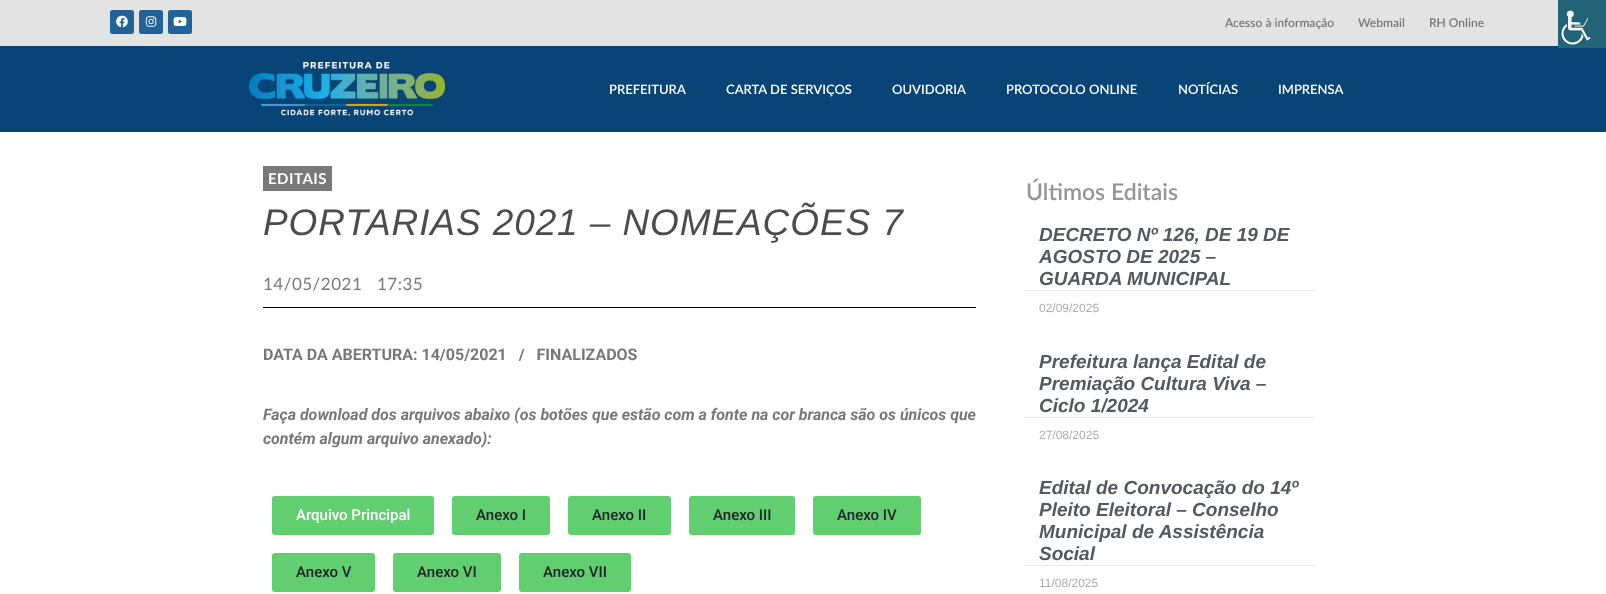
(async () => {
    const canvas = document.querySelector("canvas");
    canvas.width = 1606;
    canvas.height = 594;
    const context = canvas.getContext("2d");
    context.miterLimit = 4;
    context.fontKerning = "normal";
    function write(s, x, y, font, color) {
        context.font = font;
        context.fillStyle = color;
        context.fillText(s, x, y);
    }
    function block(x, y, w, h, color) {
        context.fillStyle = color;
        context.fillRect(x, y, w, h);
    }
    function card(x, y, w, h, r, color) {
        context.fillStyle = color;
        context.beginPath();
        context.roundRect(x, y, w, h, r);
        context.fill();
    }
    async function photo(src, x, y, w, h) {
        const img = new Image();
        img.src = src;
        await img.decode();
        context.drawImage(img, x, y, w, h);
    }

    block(0, 0, 1606, 594, "rgb(255, 255, 255)");
    block(0, 0, 1558, 46, "rgb(227, 227, 227)");
    card(110, 10, 24, 24, 2.5, "rgb(33, 99, 150)");
    await photo("media/1.png", 116, 15, 12, 13);
    card(139, 10, 24, 24, 2.5, "rgb(33, 99, 150)");
    await photo("media/2.png", 145, 16, 12, 11);
    card(168, 10, 24, 24, 2.5, "rgb(33, 99, 150)");
    await photo("media/3.png", 173, 17, 14, 9);
    write("Acesso à informação", 1225, 27, "600 12px Lato", "rgb(120, 120, 120)");
    write("Webmail", 1358, 27, "600 12px Lato", "rgb(120, 120, 120)");
    write("RH Online", 1429, 27, "600 12px Lato", "rgb(120, 120, 120)");
    block(0, 46, 1606, 86, "rgb(8, 68, 117)");
    await photo("media/4.png", 249, 62, 196, 54);
    write("PREFEITURA", 609, 94, "600 13px Lato", "rgb(255, 255, 255)");
    write("CARTA DE SERVIÇOS", 726, 94, "600 13px Lato", "rgb(255, 255, 255)");
    write("OUVIDORIA", 892, 94, "600 13px Lato", "rgb(255, 255, 255)");
    write("PROTOCOLO ONLINE", 1006, 94, "600 13px Lato", "rgb(255, 255, 255)");
    write("NOTÍCIAS", 1178, 94, "600 13px Lato", "rgb(255, 255, 255)");
    write("IMPRENSA", 1278, 94, "600 13px Lato", "rgb(255, 255, 255)");
    block(263, 166, 69, 25, "rgb(120, 120, 120)");
    context.letterSpacing = "0.5px";
    write("EDITAIS", 268, 184, "bold 15px Lato", "rgb(255, 255, 255)");
    context.letterSpacing = "0.9px";
    write("PORTARIAS 2021 – NOMEAÇÕES 7", 263, 235, "italic 37px Liberation Sans", "rgb(77, 75, 75)");
    context.letterSpacing = "0.5px";
    write("14/05/2021", 263, 290, "17px Lato", "rgb(120, 120, 120)");
    write("17:35", 377, 290, "17px Lato", "rgb(120, 120, 120)");
    block(263, 307, 713, 1, "rgb(0, 0, 0)");
    context.letterSpacing = "0px";
    write("DATA DA ABERTURA: 14/05/2021   /   FINALIZADOS", 263, 360, "bold 16px Roboto", "rgb(120, 120, 120)");
    write("Faça download dos arquivos abaixo (os botões que estão com a fonte na cor branca são os únicos que", 263, 420, "italic bold 16px Roboto", "rgb(120, 120, 120)");
    write("contém algum arquivo anexado):", 263, 444, "italic bold 16px Roboto", "rgb(120, 120, 120)");
    card(272, 496, 162, 39, 3, "rgb(97, 206, 112)");
    write("Arquivo Principal", 296, 520, "500 15px Roboto", "rgb(255, 255, 255)");
    card(452, 496, 98, 39, 3, "rgb(97, 206, 112)");
    write("Anexo I", 476, 520, "500 15px Roboto", "rgb(33, 37, 41)");
    card(568, 496, 103, 39, 3, "rgb(97, 206, 112)");
    write("Anexo II", 592, 520, "500 15px Roboto", "rgb(33, 37, 41)");
    card(689, 496, 106, 39, 3, "rgb(97, 206, 112)");
    write("Anexo III", 713, 520, "500 15px Roboto", "rgb(33, 37, 41)");
    card(813, 496, 108, 39, 3, "rgb(97, 206, 112)");
    write("Anexo IV", 837, 520, "500 15px Roboto", "rgb(33, 37, 41)");
    card(272, 553, 103, 39, 3, "rgb(97, 206, 112)");
    write("Anexo V", 296, 577, "500 15px Roboto", "rgb(33, 37, 41)");
    card(393, 553, 108, 39, 3, "rgb(97, 206, 112)");
    write("Anexo VI", 417, 577, "500 15px Roboto", "rgb(33, 37, 41)");
    card(519, 553, 112, 39, 3, "rgb(97, 206, 112)");
    write("Anexo VII", 543, 577, "500 15px Roboto", "rgb(33, 37, 41)");
    write("Últimos Editais", 1026, 200, "600 23px Lato", "rgb(149, 149, 149)");
    write("DECRETO Nº 126, DE 19 DE", 1039, 241, "italic bold 19px Liberation Sans", "rgb(84, 89, 95)");
    write("AGOSTO DE 2025 –", 1039, 263, "italic bold 19px Liberation Sans", "rgb(84, 89, 95)");
    write("GUARDA MUNICIPAL", 1039, 285, "italic bold 19px Liberation Sans", "rgb(84, 89, 95)");
    block(1024, 290, 291, 1, "rgb(234, 234, 234)");
    write("02/09/2025", 1039, 312, "12px Liberation Sans", "rgb(173, 173, 173)");
    write("Prefeitura lança Edital de", 1039, 368, "italic bold 19px Liberation Sans", "rgb(84, 89, 95)");
    write("Premiação Cultura Viva –", 1039, 390, "italic bold 19px Liberation Sans", "rgb(84, 89, 95)");
    write("Ciclo 1/2024", 1039, 412, "italic bold 19px Liberation Sans", "rgb(84, 89, 95)");
    block(1024, 417, 291, 1, "rgb(234, 234, 234)");
    write("27/08/2025", 1039, 439, "12px Liberation Sans", "rgb(173, 173, 173)");
    write("Edital de Convocação do 14º", 1039, 494, "italic bold 19px Liberation Sans", "rgb(84, 89, 95)");
    write("Pleito Eleitoral – Conselho", 1039, 516, "italic bold 19px Liberation Sans", "rgb(84, 89, 95)");
    write("Municipal de Assistência", 1039, 538, "italic bold 19px Liberation Sans", "rgb(84, 89, 95)");
    write("Social", 1039, 560, "italic bold 19px Liberation Sans", "rgb(84, 89, 95)");
    block(1024, 565, 291, 1, "rgb(234, 234, 234)");
    write("11/08/2025", 1039, 587, "12px Liberation Sans", "rgb(173, 173, 173)");
    await photo("media/5.png", 1558, 0, 48, 48);
})();
